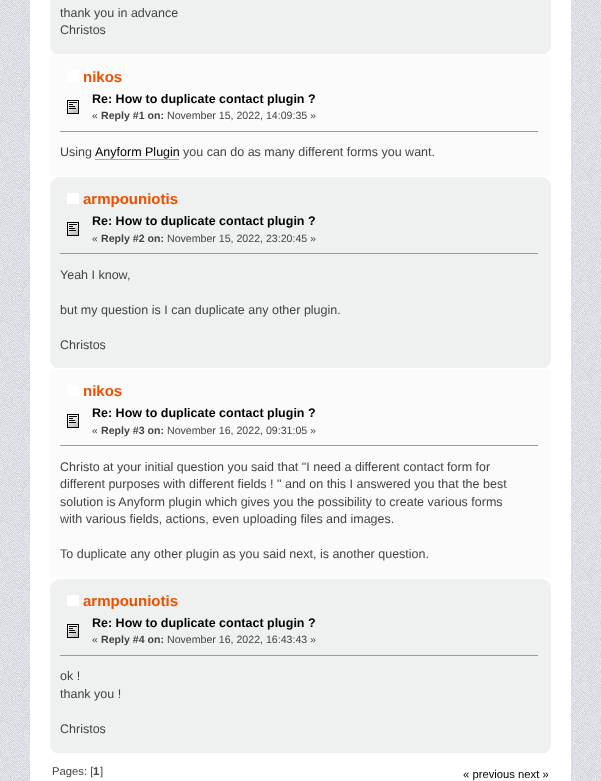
(async () => {
    const canvas = document.querySelector("canvas");
    canvas.width = 601;
    canvas.height = 781;
    const context = canvas.getContext("2d");
    context.miterLimit = 4;
    context.fontKerning = "normal";
    function write(s, x, y, font, color) {
        context.font = font;
        context.fillStyle = color;
        context.fillText(s, x, y);
    }
    function block(x, y, w, h, color) {
        context.fillStyle = color;
        context.fillRect(x, y, w, h);
    }
    async function photo(src, x, y, w, h) {
        const img = new Image();
        img.src = src;
        await img.decode();
        context.drawImage(img, x, y, w, h);
    }

    block(0, 0, 601, 781, "rgb(255, 255, 255)");
    await photo("media/1.png", 0, 0, 601, 781);
    block(30, 0, 541, 781, "rgb(255, 255, 255)");
    block(50, 0, 501, 54, "rgb(239, 240, 240)");
    write("thank you in advance", 60, 17, "12.5px Liberation Sans", "rgb(68, 68, 68)");
    write("Christos", 60, 34, "12.5px Liberation Sans", "rgb(68, 68, 68)");
    await photo("media/2.png", 50, 47, 5, 7);
    await photo("media/3.png", 546, 47, 5, 7);
    block(50, 55, 501, 121, "rgb(251, 251, 251)");
    block(67, 71, 12, 11, "rgb(255, 255, 255)");
    write("nikos", 83, 82, "bold 15px Liberation Sans", "rgb(233, 82, 0)");
    await photo("media/4.png", 67, 100, 12, 14);
    write("Re: How to duplicate contact plugin ?", 92, 103, "bold 12.5px Liberation Sans", "rgb(0, 0, 0)");
    write("«", 92, 119, "10.6px Liberation Sans", "rgb(68, 68, 68)");
    write("Reply #1 on:", 101, 119, "bold 10.6px Liberation Sans", "rgb(68, 68, 68)");
    write("November 15, 2022, 14:09:35 »", 167, 119, "10.6px Liberation Sans", "rgb(68, 68, 68)");
    block(60, 131, 478, 1, "rgb(153, 153, 170)");
    write("Using", 60, 156, "12.5px Liberation Sans", "rgb(68, 68, 68)");
    write("Anyform Plugin", 95, 156, "12.5px Liberation Sans", "rgb(0, 0, 0)");
    block(95, 159, 84, 1, "rgb(170, 170, 170)");
    write("you can do as many different forms you want.", 183, 156, "12.5px Liberation Sans", "rgb(68, 68, 68)");
    block(50, 177, 501, 191, "rgb(239, 240, 240)");
    await photo("media/5.png", 50, 177, 8, 8);
    await photo("media/6.png", 543, 177, 8, 8);
    block(67, 193, 12, 11, "rgb(255, 255, 255)");
    write("armpouniotis", 83, 204, "bold 15px Liberation Sans", "rgb(233, 82, 0)");
    await photo("media/4.png", 67, 222, 12, 14);
    write("Re: How to duplicate contact plugin ?", 92, 225, "bold 12.5px Liberation Sans", "rgb(0, 0, 0)");
    write("«", 92, 242, "10.6px Liberation Sans", "rgb(68, 68, 68)");
    write("Reply #2 on:", 101, 242, "bold 10.6px Liberation Sans", "rgb(68, 68, 68)");
    write("November 15, 2022, 23:20:45 »", 167, 242, "10.6px Liberation Sans", "rgb(68, 68, 68)");
    block(60, 253, 478, 1, "rgb(153, 153, 170)");
    write("Yeah I know,", 60, 279, "12.5px Liberation Sans", "rgb(68, 68, 68)");
    write("but my question is I can duplicate any other plugin.", 60, 314, "12.5px Liberation Sans", "rgb(68, 68, 68)");
    write("Christos", 60, 349, "12.5px Liberation Sans", "rgb(68, 68, 68)");
    await photo("media/2.png", 50, 361, 5, 7);
    await photo("media/3.png", 546, 361, 5, 7);
    block(50, 369, 501, 209, "rgb(251, 251, 251)");
    block(67, 385, 12, 11, "rgb(255, 255, 255)");
    write("nikos", 83, 396, "bold 15px Liberation Sans", "rgb(233, 82, 0)");
    await photo("media/4.png", 67, 414, 12, 14);
    write("Re: How to duplicate contact plugin ?", 92, 417, "bold 12.5px Liberation Sans", "rgb(0, 0, 0)");
    write("«", 92, 434, "10.6px Liberation Sans", "rgb(68, 68, 68)");
    write("Reply #3 on:", 101, 434, "bold 10.6px Liberation Sans", "rgb(68, 68, 68)");
    write("November 16, 2022, 09:31:05 »", 167, 434, "10.6px Liberation Sans", "rgb(68, 68, 68)");
    block(60, 445, 478, 1, "rgb(153, 153, 170)");
    write("Christo at your initial question you said that \"I need a different contact form for", 60, 471, "12.5px Liberation Sans", "rgb(68, 68, 68)");
    write("different purposes with different fields ! \" and on this I answered you that the best", 60, 488, "12.5px Liberation Sans", "rgb(68, 68, 68)");
    write("solution is Anyform plugin which gives you the possibility to create various forms", 60, 506, "12.5px Liberation Sans", "rgb(68, 68, 68)");
    write("with various fields, actions, even uploading files and images.", 60, 523, "12.5px Liberation Sans", "rgb(68, 68, 68)");
    write("To duplicate any other plugin as you said next, is another question.", 60, 558, "12.5px Liberation Sans", "rgb(68, 68, 68)");
    block(50, 579, 501, 174, "rgb(239, 240, 240)");
    await photo("media/5.png", 50, 579, 8, 8);
    await photo("media/6.png", 543, 579, 8, 8);
    block(67, 595, 12, 11, "rgb(255, 255, 255)");
    write("armpouniotis", 83, 606, "bold 15px Liberation Sans", "rgb(233, 82, 0)");
    await photo("media/4.png", 67, 624, 12, 14);
    write("Re: How to duplicate contact plugin ?", 92, 627, "bold 12.5px Liberation Sans", "rgb(0, 0, 0)");
    write("«", 92, 643, "10.6px Liberation Sans", "rgb(68, 68, 68)");
    write("Reply #4 on:", 101, 643, "bold 10.6px Liberation Sans", "rgb(68, 68, 68)");
    write("November 16, 2022, 16:43:43 »", 167, 643, "10.6px Liberation Sans", "rgb(68, 68, 68)");
    block(60, 655, 478, 1, "rgb(153, 153, 170)");
    write("ok !", 60, 680, "12.5px Liberation Sans", "rgb(68, 68, 68)");
    write("thank you !", 60, 698, "12.5px Liberation Sans", "rgb(68, 68, 68)");
    write("Christos", 60, 733, "12.5px Liberation Sans", "rgb(68, 68, 68)");
    await photo("media/2.png", 50, 746, 5, 7);
    await photo("media/3.png", 546, 746, 5, 7);
    write("Pages: [", 52, 775, "11.25px Liberation Sans", "rgb(68, 68, 68)");
    write("1", 93, 775, "bold 11.25px Liberation Sans", "rgb(68, 68, 68)");
    write("]", 100, 775, "11.25px Liberation Sans", "rgb(68, 68, 68)");
    write("« previous next »", 463, 778, "11.25px Liberation Sans", "rgb(0, 0, 0)");
})();
